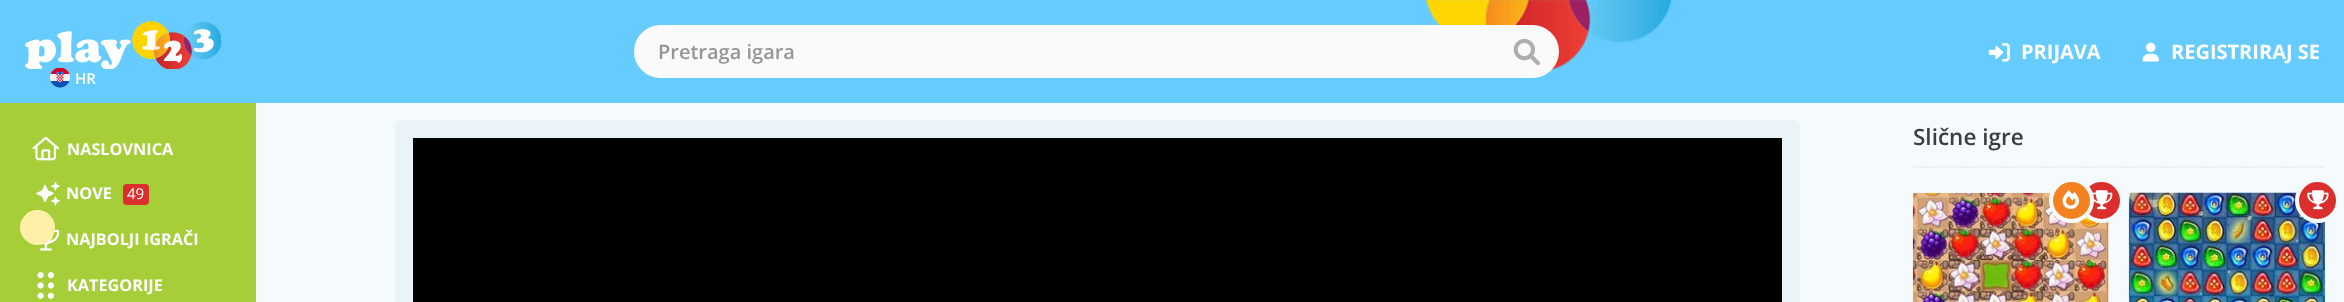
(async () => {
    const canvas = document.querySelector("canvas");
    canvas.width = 2344;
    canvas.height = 302;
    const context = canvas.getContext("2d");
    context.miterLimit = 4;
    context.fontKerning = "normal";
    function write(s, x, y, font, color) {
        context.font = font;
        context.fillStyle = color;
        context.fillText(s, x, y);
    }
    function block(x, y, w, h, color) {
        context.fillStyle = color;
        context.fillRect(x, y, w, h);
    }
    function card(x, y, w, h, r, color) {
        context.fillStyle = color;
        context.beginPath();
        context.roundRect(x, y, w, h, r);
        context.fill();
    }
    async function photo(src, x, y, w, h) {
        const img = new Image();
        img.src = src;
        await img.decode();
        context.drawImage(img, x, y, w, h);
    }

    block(0, 0, 2344, 302, "rgb(245, 250, 252)");
    block(0, 0, 2344, 103, "rgb(102, 204, 255)");
    await photo("media/1.png", 1426, 0, 246, 71);
    card(634, 25, 925, 53, 26.5, "rgb(250, 250, 250)");
    write("Pretraga igara", 658, 59, "600 20px Open Sans", "rgb(150, 150, 150)");
    await photo("media/2.png", 1513, 38, 27, 28);
    await photo("media/3.png", 1988, 43, 22, 19);
    write("PRIJAVA", 2021, 59, "bold 20px Open Sans", "rgb(255, 255, 255)");
    await photo("media/4.png", 2142, 42, 17, 20);
    write("REGISTRIRAJ SE", 2171, 59, "bold 20px Open Sans", "rgb(255, 255, 255)");
    await photo("media/5.png", 25, 21, 196, 48);
    await photo("media/6.png", 50, 68, 20, 20);
    write("HR", 75, 84, "600 15px Open Sans", "rgb(255, 255, 255)");
    card(395, 120, 1405, 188, 6, "rgb(234, 244, 248)");
    block(413, 138, 1369, 164, "rgb(0, 0, 0)");
    context.beginPath();
    context.moveTo(1912.5, 167);
    context.lineTo(2325, 167);
    context.strokeStyle = "rgb(217, 217, 217)";
    context.lineWidth = 1.2;
    context.setLineDash([1.25, 1.25]);
    context.stroke();
    write("Slične igre", 1913, 145, "600 22.5px Open Sans", "rgb(59, 62, 62)");
    card(1913, 193, 196, 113, 4, "rgb(255, 255, 255)");
    await photo("media/9.png", 1912, 192, 197, 110);
    context.fillStyle = "rgb(219, 47, 45)";
    context.beginPath();
    context.arc(2101.5, 200.5, 20.5, 0, Math.PI * 2);
    context.fill();
    context.strokeStyle = "rgb(245, 250, 252)";
    context.lineWidth = 4;
    context.setLineDash([]);
    context.stroke();
    await photo("media/8.png", 2092, 190, 21, 20);
    context.fillStyle = "rgb(245, 130, 32)";
    context.beginPath();
    context.arc(2071.5, 200.5, 20.5, 0, Math.PI * 2);
    context.fill();
    context.stroke();
    await photo("media/7.png", 2062, 190, 17, 19);
    await photo("media/11.png", 2128, 192, 197, 110);
    context.fillStyle = "rgb(219, 47, 45)";
    context.beginPath();
    context.arc(2317.5, 200.5, 20.5, 0, Math.PI * 2);
    context.fill();
    context.stroke();
    await photo("media/10.png", 2307, 190, 22, 20);
    block(0, 103, 256, 199, "rgb(166, 206, 57)");
    await photo("media/12.png", 32, 136, 27, 25);
    write("NASLOVNICA", 67, 155, "bold 16.25px Open Sans", "rgb(255, 255, 255)");
    await photo("media/13.png", 36, 181, 24, 25);
    write("NOVE", 66, 199, "bold 16.25px Open Sans", "rgb(255, 255, 255)");
    card(123, 184, 26, 21, 4, "rgb(219, 47, 45)");
    write("49", 127, 199, "15px Open Sans", "rgb(255, 255, 255)");
    await photo("media/14.png", 40, 229, 20, 22);
    context.fillStyle = "rgb(255, 240, 167)";
    context.beginPath();
    context.arc(37.5, 227.5, 17.5, 0, Math.PI * 2);
    context.fill();
    write("NAJBOLJI IGRAČI", 66, 245, "bold 16.25px Open Sans", "rgb(255, 255, 255)");
    await photo("media/15.png", 37, 272, 17, 27);
    write("KATEGORIJE", 67, 291, "bold 16.25px Open Sans", "rgb(255, 255, 255)");
})();
